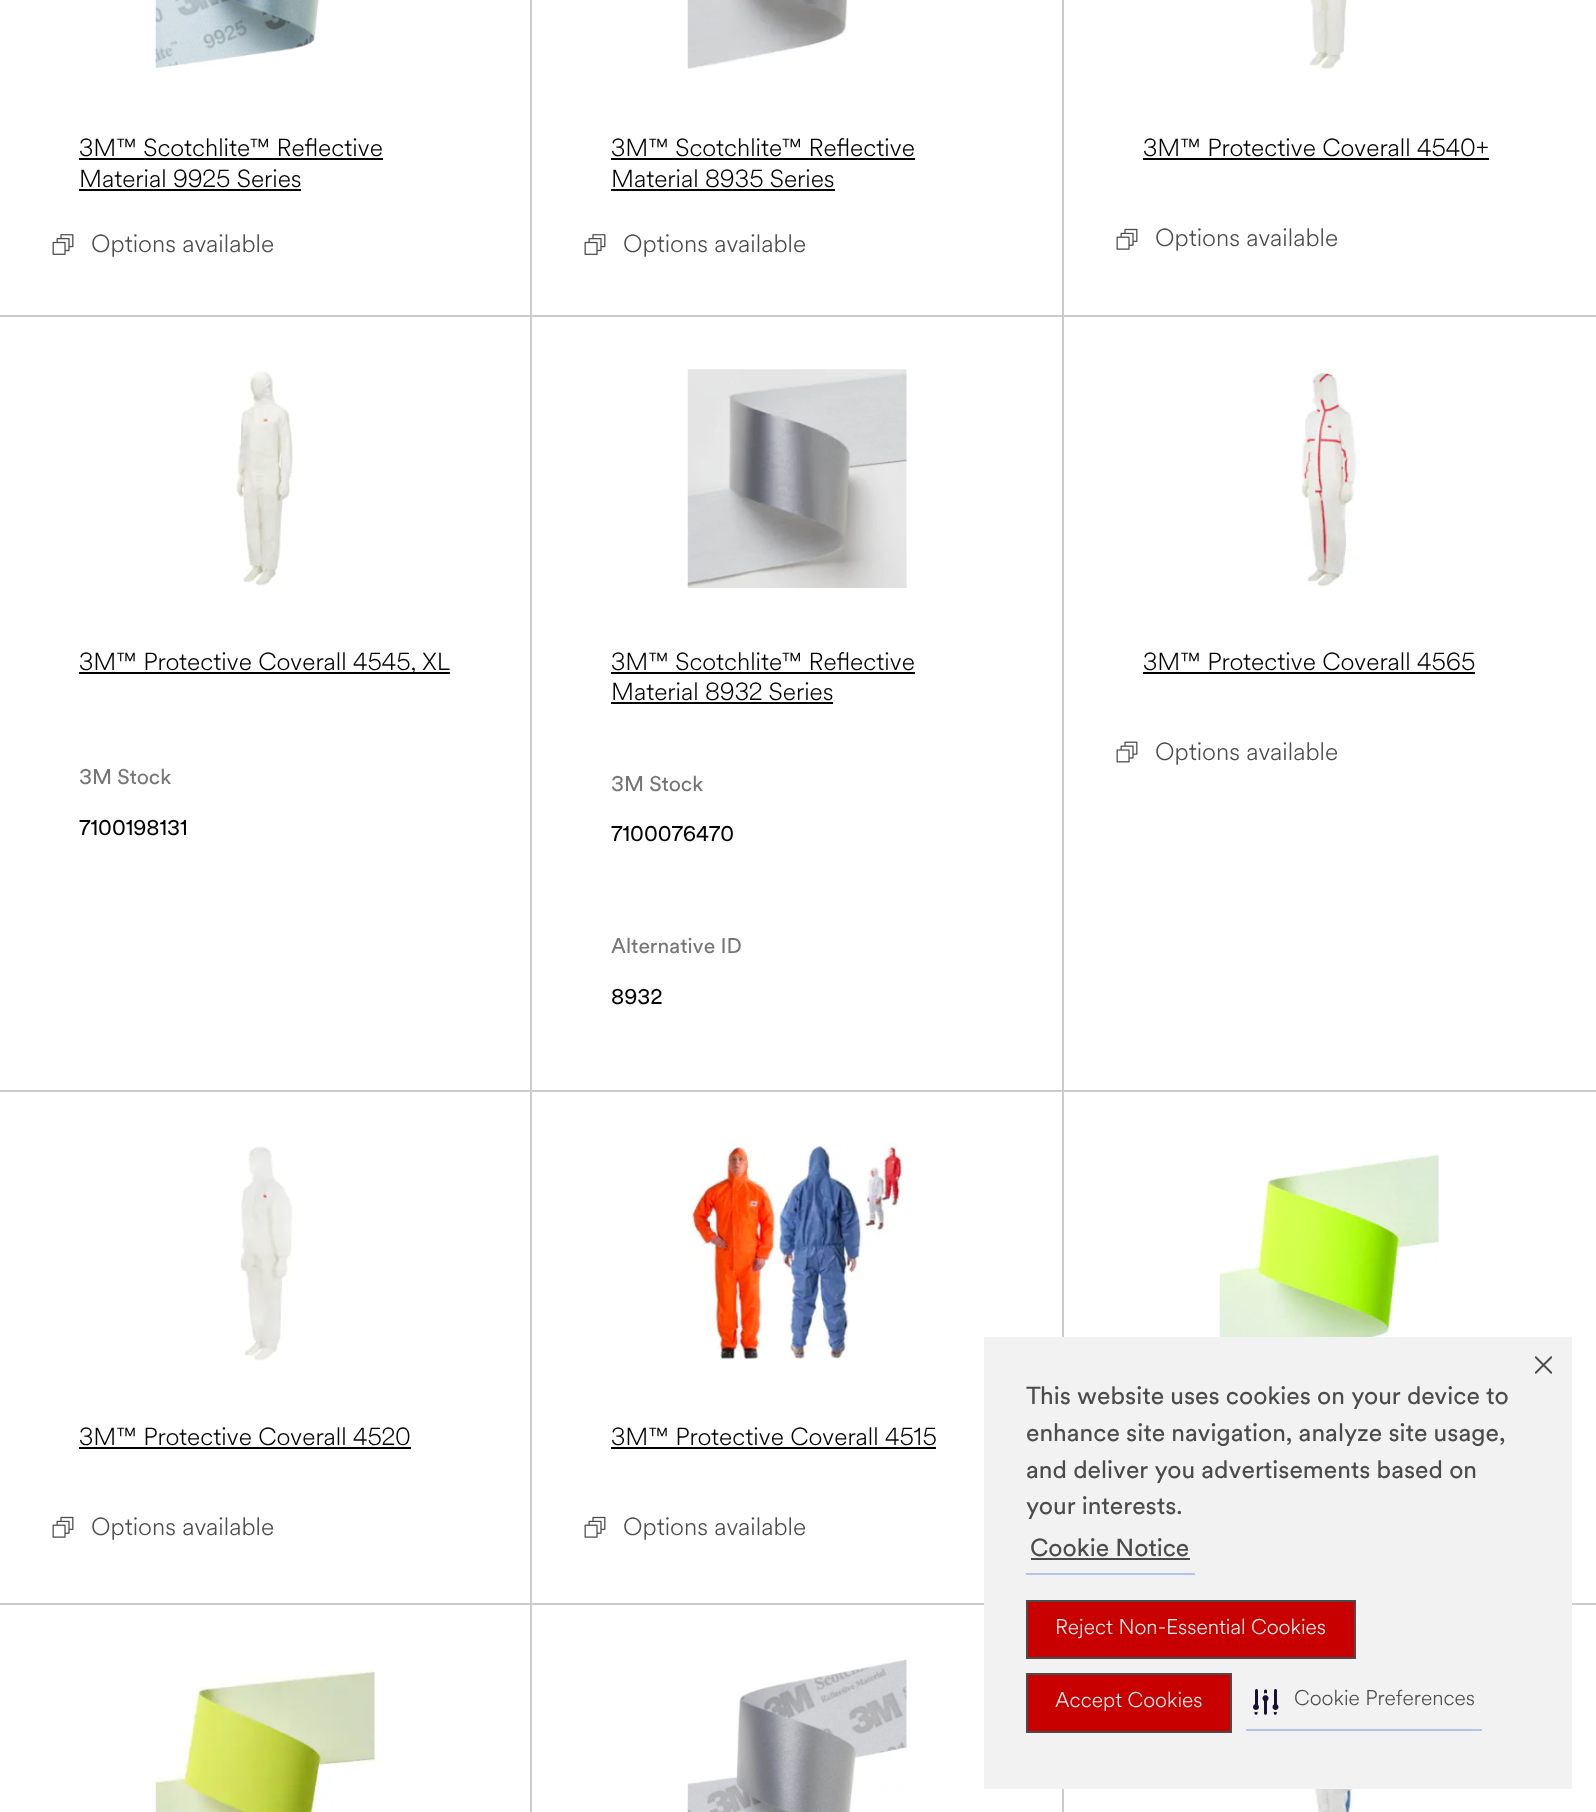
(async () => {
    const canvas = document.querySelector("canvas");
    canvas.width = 1596;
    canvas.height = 1812;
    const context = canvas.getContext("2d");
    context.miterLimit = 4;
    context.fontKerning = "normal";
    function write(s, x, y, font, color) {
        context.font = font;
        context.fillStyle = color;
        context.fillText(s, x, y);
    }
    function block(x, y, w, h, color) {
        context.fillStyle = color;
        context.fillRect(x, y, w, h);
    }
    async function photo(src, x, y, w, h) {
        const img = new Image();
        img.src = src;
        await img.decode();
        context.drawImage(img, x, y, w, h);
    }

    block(0, 0, 1596, 1812, "rgb(255, 255, 255)");
    block(530, 0, 2, 1812, "rgb(204, 204, 204)");
    block(0, 315, 532, 2, "rgb(204, 204, 204)");
    await photo("media/1.png", 155, 0, 164, 68);
    write("3M™ Scotchlite™ Reflective", 79, 156, "300 24.5px '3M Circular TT'", "rgb(0, 0, 0)");
    block(79, 158, 304, 2, "rgb(0, 0, 0)");
    write("Material 9925 Series", 79, 187, "300 24.5px '3M Circular TT'", "rgb(0, 0, 0)");
    block(79, 189, 222, 2, "rgb(0, 0, 0)");
    await photo("media/2.png", 52, 234, 22, 21);
    write("Options available", 91, 252, "300 24.5px '3M Circular TT'", "rgb(75, 75, 75)");
    block(1062, 0, 2, 1337, "rgb(204, 204, 204)");
    block(532, 315, 1064, 2, "rgb(204, 204, 204)");
    await photo("media/3.png", 687, 0, 161, 73);
    write("3M™ Scotchlite™ Reflective", 611, 156, "300 24.5px '3M Circular TT'", "rgb(0, 0, 0)");
    block(611, 158, 304, 2, "rgb(0, 0, 0)");
    write("Material 8935 Series", 611, 187, "300 24.5px '3M Circular TT'", "rgb(0, 0, 0)");
    block(611, 189, 224, 2, "rgb(0, 0, 0)");
    await photo("media/2.png", 584, 234, 22, 21);
    write("Options available", 623, 252, "300 24.5px '3M Circular TT'", "rgb(75, 75, 75)");
    await photo("media/4.png", 1309, 0, 39, 70);
    write("3M™ Protective Coverall 4540+", 1143, 156, "300 24.5px '3M Circular TT'", "rgb(0, 0, 0)");
    block(1143, 158, 346, 2, "rgb(0, 0, 0)");
    await photo("media/5.png", 1116, 228, 22, 22);
    write("Options available", 1155, 246, "300 24.5px '3M Circular TT'", "rgb(75, 75, 75)");
    block(0, 1090, 1596, 2, "rgb(204, 204, 204)");
    await photo("media/6.png", 236, 371, 57, 215);
    block(79, 672, 371, 2, "rgb(0, 0, 0)");
    write("3M™ Protective Coverall 4545, XL", 79, 670, "300 24.5px '3M Circular TT'", "rgb(0, 0, 0)");
    write("3M Stock", 79, 784, "21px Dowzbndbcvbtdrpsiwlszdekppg", "rgb(118, 118, 118)");
    write("7100198131", 79, 835, "21px Dowzbndbcvbtdrpsiwlszdekppg", "rgb(0, 0, 0)");
    await photo("media/7.png", 687, 369, 220, 219);
    write("3M™ Scotchlite™ Reflective", 611, 670, "300 24.5px '3M Circular TT'", "rgb(0, 0, 0)");
    block(611, 672, 304, 2, "rgb(0, 0, 0)");
    write("Material 8932 Series", 611, 700, "300 24.5px '3M Circular TT'", "rgb(0, 0, 0)");
    block(611, 702, 222, 2, "rgb(0, 0, 0)");
    write("3M Stock", 611, 791, "21px Dowzbndbcvbtdrpsiwlszdekppg", "rgb(118, 118, 118)");
    write("7100076470", 611, 841, "21px Dowzbndbcvbtdrpsiwlszdekppg", "rgb(0, 0, 0)");
    write("Alternative ID", 611, 953, "21px Dowzbndbcvbtdrpsiwlszdekppg", "rgb(118, 118, 118)");
    write("8932", 611, 1004, "21px Dowzbndbcvbtdrpsiwlszdekppg", "rgb(0, 0, 0)");
    await photo("media/8.png", 1301, 369, 56, 218);
    write("3M™ Protective Coverall 4565", 1143, 670, "300 24.5px '3M Circular TT'", "rgb(0, 0, 0)");
    block(1143, 672, 332, 2, "rgb(0, 0, 0)");
    await photo("media/9.png", 1116, 741, 22, 22);
    write("Options available", 1155, 760, "300 24.5px '3M Circular TT'", "rgb(75, 75, 75)");
    block(0, 1603, 984, 2, "rgb(204, 204, 204)");
    await photo("media/10.png", 240, 1146, 57, 215);
    write("3M™ Protective Coverall 4520", 79, 1445, "300 24.5px '3M Circular TT'", "rgb(0, 0, 0)");
    block(79, 1447, 332, 2, "rgb(0, 0, 0)");
    await photo("media/5.png", 52, 1516, 22, 22);
    write("Options available", 91, 1535, "300 24.5px '3M Circular TT'", "rgb(75, 75, 75)");
    await photo("media/11.png", 688, 1144, 215, 215);
    write("3M™ Protective Coverall 4515", 611, 1445, "300 24.5px '3M Circular TT'", "rgb(0, 0, 0)");
    block(611, 1447, 325, 2, "rgb(0, 0, 0)");
    await photo("media/5.png", 584, 1516, 22, 22);
    write("Options available", 623, 1535, "300 24.5px '3M Circular TT'", "rgb(75, 75, 75)");
    block(1572, 1603, 24, 2, "rgb(204, 204, 204)");
    await photo("media/12.png", 1219, 1154, 220, 183);
    await photo("media/13.png", 155, 1668, 220, 144);
    block(1062, 1789, 2, 23, "rgb(204, 204, 204)");
    await photo("media/14.png", 687, 1659, 220, 153);
    await photo("media/15.png", 1310, 1789, 50, 23);
    block(984, 1337, 588, 452, "rgb(242, 242, 242)");
    write("This website uses cookies on your device to", 1026, 1404, "24.5px Dowzbndbcvbtdrpsiwlszdekppg", "rgb(75, 75, 75)");
    write("enhance site navigation, analyze site usage,", 1026, 1441, "24.5px Dowzbndbcvbtdrpsiwlszdekppg", "rgb(75, 75, 75)");
    write("and deliver you advertisements based on", 1026, 1478, "24.5px Dowzbndbcvbtdrpsiwlszdekppg", "rgb(75, 75, 75)");
    write("your interests.", 1026, 1514, "24.5px Dowzbndbcvbtdrpsiwlszdekppg", "rgb(75, 75, 75)");
    block(1026, 1573, 169, 2, "rgb(182, 194, 233)");
    write("Cookie Notice", 1030, 1556, "24.5px Dowzbndbcvbtdrpsiwlszdekppg", "rgb(75, 75, 75)");
    block(1031, 1558, 159, 2, "rgb(75, 75, 75)");
    await photo("media/16.png", 1535, 1356, 17, 18);
    context.fillStyle = "rgb(200, 0, 0)";
    context.beginPath();
    context.rect(1027, 1601, 328, 57);
    context.fill();
    context.strokeStyle = "rgb(75, 75, 75)";
    context.lineWidth = 2;
    context.stroke();
    write("Reject Non-Essential Cookies", 1055, 1634, "300 21px '3M Circular TT'", "rgb(242, 242, 242)");
    context.fillStyle = "rgb(200, 0, 0)";
    context.beginPath();
    context.rect(1027, 1674, 204, 58);
    context.fill();
    context.stroke();
    write("Accept Cookies", 1055, 1707, "300 21px '3M Circular TT'", "rgb(242, 242, 242)");
    block(1246, 1729, 236, 2, "rgb(182, 194, 233)");
    await photo("media/17.png", 1253, 1689, 26, 26);
    write("Cookie Preferences", 1294, 1705, "300 21px '3M Circular TT'", "rgb(75, 75, 75)");
})();
